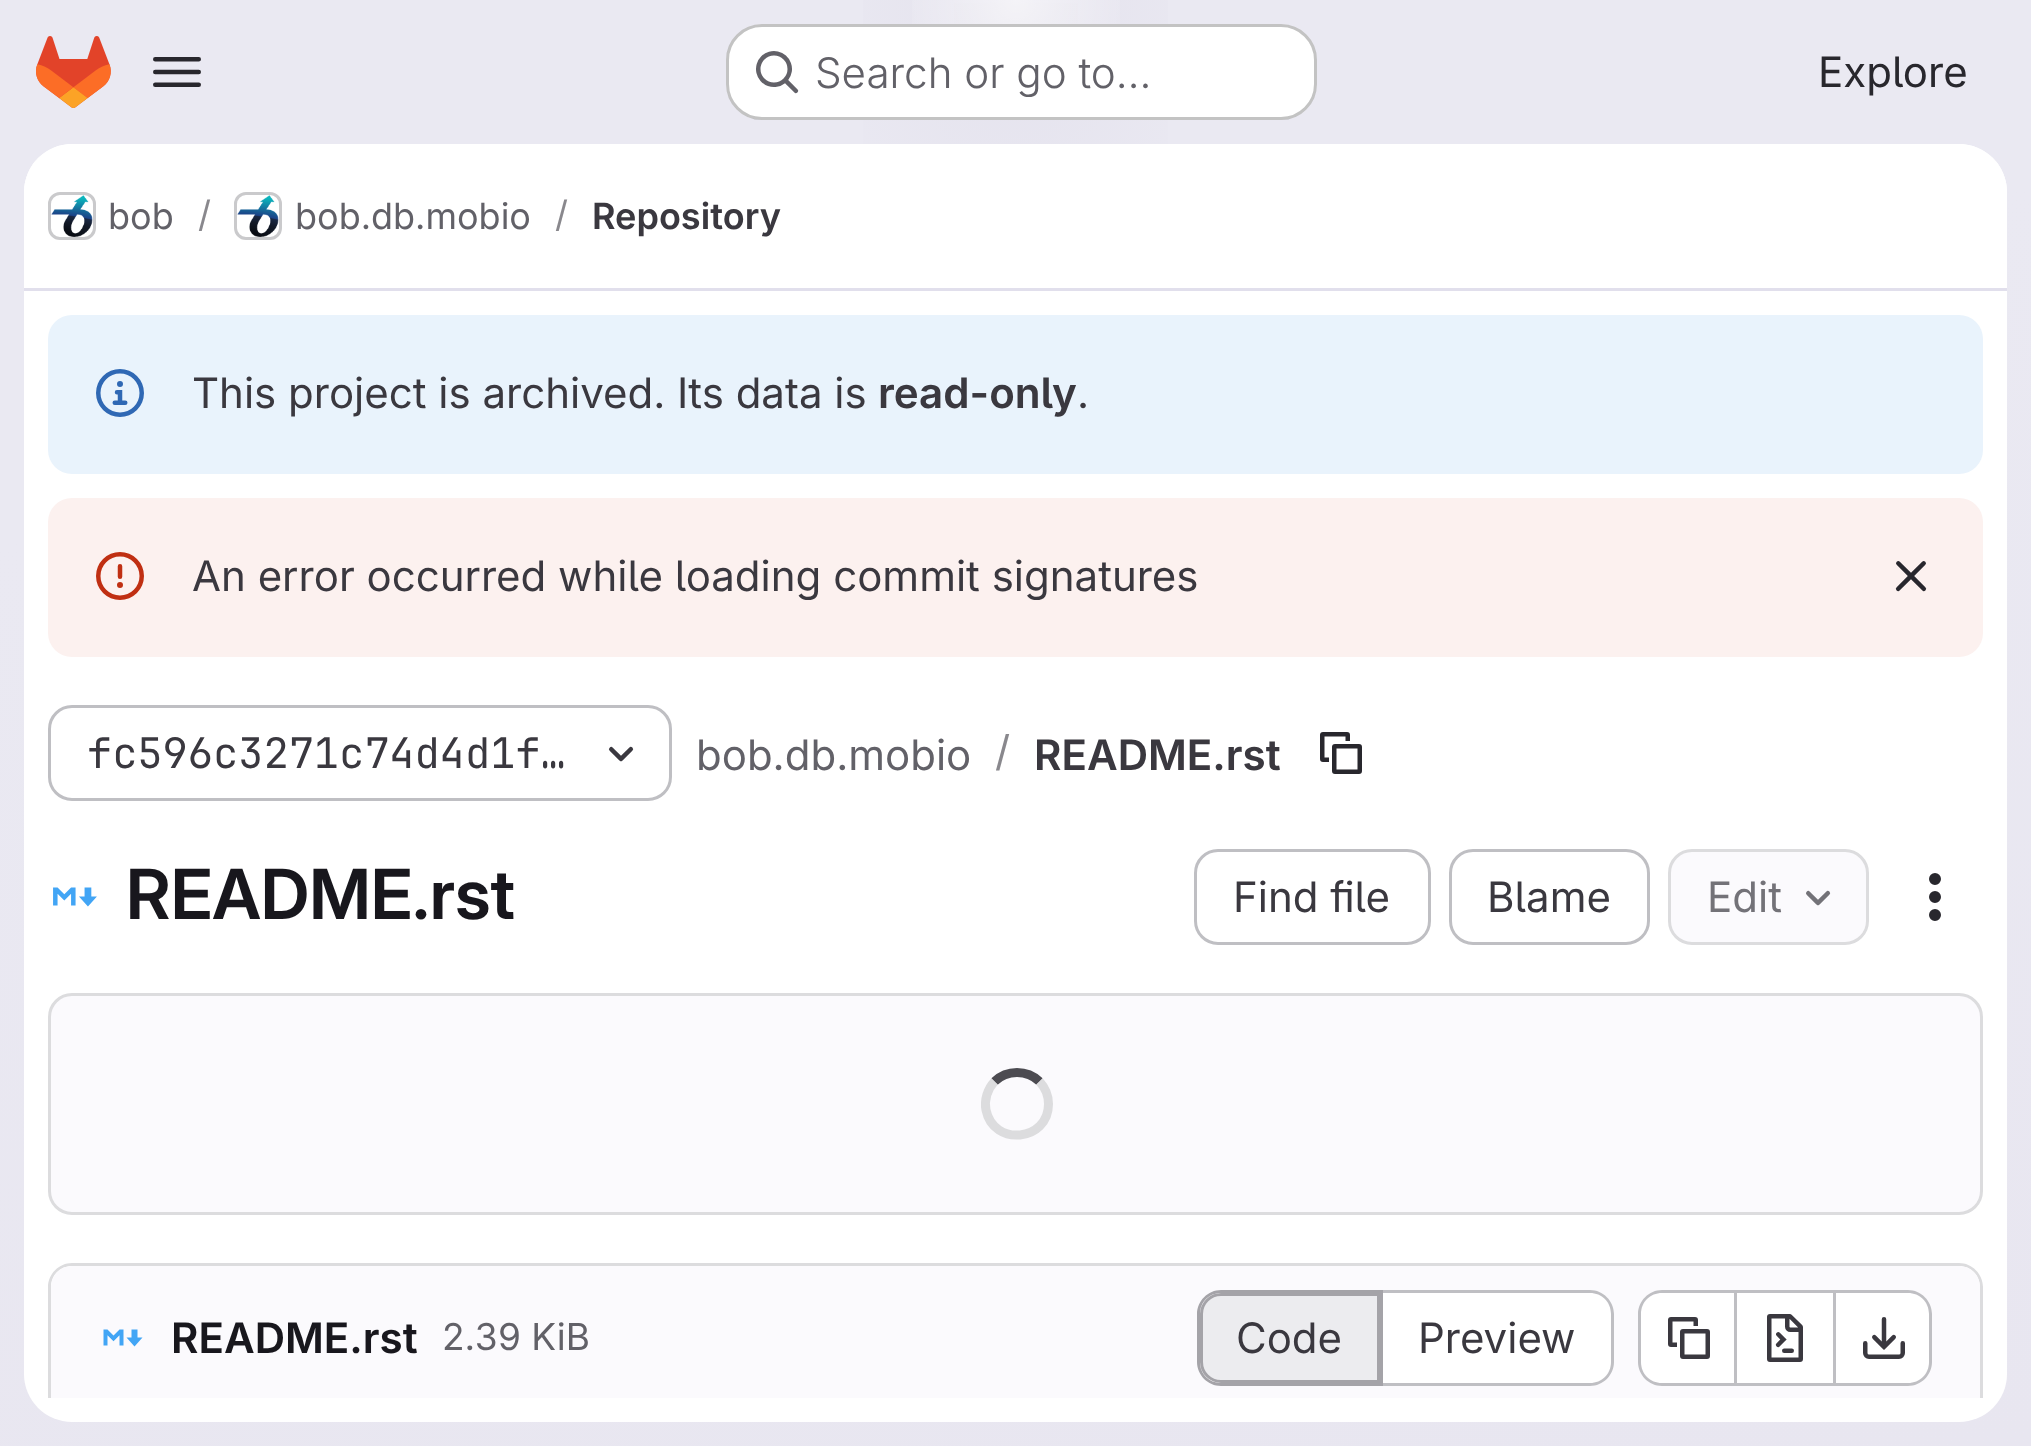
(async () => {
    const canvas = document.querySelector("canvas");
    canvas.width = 2031;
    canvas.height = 1446;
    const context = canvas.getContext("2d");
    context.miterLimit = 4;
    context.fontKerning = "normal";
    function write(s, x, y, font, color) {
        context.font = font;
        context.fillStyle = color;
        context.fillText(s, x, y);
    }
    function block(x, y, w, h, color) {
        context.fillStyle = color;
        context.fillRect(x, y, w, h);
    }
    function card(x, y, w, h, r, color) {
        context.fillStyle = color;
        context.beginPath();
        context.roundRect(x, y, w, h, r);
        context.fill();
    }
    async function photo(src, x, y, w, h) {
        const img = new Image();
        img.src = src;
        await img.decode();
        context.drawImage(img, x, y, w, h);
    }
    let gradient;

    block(0, 0, 2031, 1446, "rgb(255, 255, 255)");
    gradient = context.createLinearGradient(1170, 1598, 861, -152);
    gradient.addColorStop(0, "rgb(232, 230, 240)");
    gradient.addColorStop(0.7, "rgb(234, 233, 242)");
    context.fillStyle = gradient;
    context.fillRect(0, 0, 2031, 1446);
    gradient = context.createRadialGradient(1016, 0, 0, 1016, 0, 1016);
    gradient.addColorStop(0, "rgb(228, 226, 237)");
    gradient.addColorStop(0.21, "rgba(228, 226, 237, 0)");
    context.fillStyle = gradient;
    context.beginPath();
    context.rect(863, 0, 305, 144);
    context.save();
    context.clip();
    context.scale(1, 1446 / 1016);
    context.fillRect(0, 0, 2031, 1016);
    context.restore();
    gradient = context.createRadialGradient(1016, 0, 0, 1016, 0, 1016);
    gradient.addColorStop(0, "rgb(228, 226, 236)");
    gradient.addColorStop(0.15, "rgba(228, 226, 236, 0)");
    context.fillStyle = gradient;
    context.beginPath();
    context.rect(954, 3, 124, 86);
    context.save();
    context.clip();
    context.scale(1, 1446 / 1016);
    context.fillRect(0, 0, 2031, 1016);
    context.restore();
    gradient = context.createRadialGradient(1016, 0, 0, 1016, 0, 1767);
    gradient.addColorStop(0, "rgba(255, 255, 255, 0.6)");
    gradient.addColorStop(0.07, "rgba(255, 255, 255, 0)");
    context.fillStyle = gradient;
    context.fillRect(912, 0, 208, 24);
    await photo("media/1.png", 36, 36, 75, 72);
    await photo("media/2.png", 153, 57, 48, 30);
    card(726, 24, 591, 96, 36, "rgb(255, 255, 255)");
    context.beginPath();
    context.roundRect(727.5, 25.5, 588, 93, 34.5);
    context.strokeStyle = "rgba(5, 5, 6, 0.24)";
    context.lineWidth = 3;
    context.stroke();
    await photo("media/3.png", 756, 51, 43, 43);
    write("Search or go to…", 815, 88, "300 42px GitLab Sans", "rgb(98, 97, 104)");
    write("Explore", 1818, 87, "42px GitLab Sans", "rgb(40, 39, 45)");
    card(24, 144, 1983, 1278, 48, "rgb(255, 255, 255)");
    context.beginPath();
    context.roundRect(24, 144, 1983, 147, [48, 48, 0, 0]);
    context.fill();
    block(24, 288, 1983, 3, "rgb(225, 223, 236)");
    context.beginPath();
    context.roundRect(49.5, 193.5, 45, 45, 10.5);
    context.strokeStyle = "rgb(220, 220, 222)";
    context.stroke();
    await photo("media/4.png", 51, 195, 42, 42);
    context.beginPath();
    context.roundRect(49.5, 193.5, 45, 45, 10.5);
    context.strokeStyle = "rgba(5, 5, 6, 0.08)";
    context.stroke();
    write("bob", 108, 229, "36px GitLab Sans", "rgb(98, 97, 104)");
    write("/", 198, 227, "36px GitLab Sans", "rgb(137, 136, 141)");
    context.beginPath();
    context.roundRect(235.5, 193.5, 45, 45, 10.5);
    context.strokeStyle = "rgb(220, 220, 222)";
    context.stroke();
    await photo("media/5.png", 237, 195, 42, 42);
    context.beginPath();
    context.roundRect(235.5, 193.5, 45, 45, 10.5);
    context.strokeStyle = "rgba(5, 5, 6, 0.08)";
    context.stroke();
    write("bob.db.mobio", 295, 229, "36px GitLab Sans", "rgb(98, 97, 104)");
    write("/", 555, 227, "36px GitLab Sans", "rgb(137, 136, 141)");
    write("Repository", 592, 229, "600 36px GitLab Sans", "rgb(58, 56, 63)");
    card(48, 315, 1935, 159, 24, "rgb(233, 243, 252)");
    await photo("media/6.png", 96, 369, 48, 48);
    write("This project is archived. Its data is", 192, 408, "42px GitLab Sans", "rgb(58, 56, 63)");
    write("read-only", 878, 408, "600 42px GitLab Sans", "rgb(58, 56, 63)");
    write(".", 1077, 408, "42px GitLab Sans", "rgb(58, 56, 63)");
    card(48, 498, 1935, 159, 24, "rgb(252, 241, 239)");
    await photo("media/7.png", 96, 552, 48, 48);
    write("An error occurred while loading commit signatures", 192, 591, "42px GitLab Sans", "rgb(58, 56, 63)");
    await photo("media/8.png", 1895, 561, 32, 31);
    context.beginPath();
    context.roundRect(49.5, 706.5, 621, 93, 22.5);
    context.strokeStyle = "rgb(191, 191, 195)";
    context.stroke();
    write("fc596c3271c74d4d1f…", 87, 768, "42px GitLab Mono", "rgb(58, 56, 63)");
    await photo("media/9.png", 608, 746, 26, 16);
    write("bob.db.mobio", 696, 770, "42px GitLab Sans", "rgb(98, 97, 104)");
    write("/", 995, 766, "42px GitLab Sans", "rgb(137, 136, 141)");
    write("README.rst", 1034, 770, "600 42px GitLab Sans", "rgb(58, 56, 63)");
    await photo("media/10.png", 1320, 732, 42, 42);
    await photo("media/11.png", 53, 887, 44, 20);
    write("README.rst", 126, 919, "600 69px 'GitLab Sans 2'", "rgb(24, 23, 29)");
    context.beginPath();
    context.roundRect(1195.5, 850.5, 234, 93, 22.5);
    context.stroke();
    write("Find file", 1233, 912, "42px GitLab Sans", "rgb(58, 56, 63)");
    context.beginPath();
    context.roundRect(1450.5, 850.5, 198, 93, 22.5);
    context.stroke();
    write("Blame", 1487, 912, "42px GitLab Sans", "rgb(58, 56, 63)");
    context.fillStyle = "rgb(251, 250, 253)";
    context.beginPath();
    context.roundRect(1669.5, 850.5, 198, 93, 22.5);
    context.fill();
    context.strokeStyle = "rgb(220, 220, 222)";
    context.stroke();
    write("Edit", 1707, 912, "42px GitLab Sans", "rgb(115, 114, 120)");
    await photo("media/12.png", 1806, 890, 25, 16);
    await photo("media/13.png", 1929, 873, 12, 48);
    context.fillStyle = "rgb(251, 250, 253)";
    context.beginPath();
    context.roundRect(49.5, 994.5, 1932, 219, 22.5);
    context.fill();
    context.stroke();
    context.beginPath();
    context.moveTo(994.5, 1081.5);
    context.bezierCurveTo(1007, 1069.5, 1027, 1069.5, 1039.5, 1081.5);
    context.strokeStyle = "rgb(76, 75, 81)";
    context.lineWidth = 9;
    context.stroke();
    context.beginPath();
    context.moveTo(1039.5, 1081.5);
    context.bezierCurveTo(1045, 1087.5, 1048.5, 1095.5, 1048.5, 1104);
    context.bezierCurveTo(1048.5, 1141.5, 993.5, 1147, 986, 1110);
    context.bezierCurveTo(984, 1100, 987.5, 1089, 994.5, 1081.5);
    context.strokeStyle = "rgb(220, 220, 222)";
    context.stroke();
    context.save();
    context.beginPath();
    context.rect(24, 291, 1983, 1107);
    context.clip();
    context.fillStyle = "rgb(220, 220, 222)";
    context.beginPath();
    context.moveTo(72, 1263);
    context.bezierCurveTo(59, 1263, 48, 1274, 48, 1287);
    context.lineTo(48, 1416);
    context.lineTo(51, 1417);
    context.lineTo(51, 1287);
    context.bezierCurveTo(51, 1275, 60, 1266, 72, 1266);
    context.lineTo(1959, 1266);
    context.bezierCurveTo(1971, 1266, 1980, 1275, 1980, 1287);
    context.lineTo(1980, 1417);
    context.lineTo(1983, 1416);
    context.lineTo(1983, 1287);
    context.bezierCurveTo(1983, 1274, 1972, 1263, 1959, 1263);
    context.closePath();
    context.fill();
    context.restore();
    context.beginPath();
    context.roundRect(51, 1266, 1929, 132, [21, 21, 0, 0]);
    context.fill();
    await photo("media/14.png", 103, 1329, 40, 18);
    write("README.rst", 171, 1353, "600 42px GitLab Sans", "rgb(24, 23, 29)");
    write("2.39 KiB", 442, 1350, "37px GitLab Sans", "rgb(98, 97, 104)");
    context.fillStyle = "rgb(236, 236, 239)";
    context.beginPath();
    context.roundRect(1201.5, 1294.5, 177, 87, [19.5, 0, 0, 19.5]);
    context.fill();
    context.strokeStyle = "rgb(164, 163, 168)";
    context.lineWidth = 3;
    context.stroke();
    context.fillStyle = "rgb(164, 163, 168)";
    context.beginPath();
    context.moveTo(1221, 1290);
    context.lineTo(1380, 1290);
    context.lineTo(1380, 1386);
    context.lineTo(1221, 1386);
    context.bezierCurveTo(1208, 1386, 1197, 1375, 1197, 1362);
    context.lineTo(1197, 1314);
    context.bezierCurveTo(1197, 1301, 1208, 1290, 1221, 1290);
    context.closePath();
    context.moveTo(1221, 1293);
    context.lineTo(1380, 1293);
    context.lineTo(1380, 1383);
    context.lineTo(1221, 1383);
    context.bezierCurveTo(1209, 1383, 1200, 1374, 1200, 1362);
    context.lineTo(1200, 1314);
    context.bezierCurveTo(1200, 1302, 1209, 1293, 1221, 1293);
    context.closePath();
    context.fill("evenodd");
    write("Code", 1236, 1353, "42px GitLab Sans", "rgb(58, 56, 63)");
    context.fillStyle = "rgb(255, 255, 255)";
    context.beginPath();
    context.roundRect(1383, 1293, 228, 90, [0, 21, 21, 0]);
    context.fill();
    context.fillStyle = "rgb(191, 191, 195)";
    context.beginPath();
    context.moveTo(1383, 1290);
    context.lineTo(1590, 1290);
    context.bezierCurveTo(1603, 1290, 1614, 1301, 1614, 1314);
    context.lineTo(1614, 1362);
    context.bezierCurveTo(1614, 1375, 1603, 1386, 1590, 1386);
    context.lineTo(1383, 1386);
    context.closePath();
    context.moveTo(1383, 1293);
    context.lineTo(1590, 1293);
    context.bezierCurveTo(1602, 1293, 1611, 1302, 1611, 1314);
    context.lineTo(1611, 1362);
    context.bezierCurveTo(1611, 1374, 1602, 1383, 1590, 1383);
    context.lineTo(1383, 1383);
    context.closePath();
    context.fill("evenodd");
    block(1380, 1290, 3, 96, "rgb(164, 163, 168)");
    write("Preview", 1418, 1353, "42px GitLab Sans", "rgb(58, 56, 63)");
    context.fillStyle = "rgb(255, 255, 255)";
    context.beginPath();
    context.roundRect(1641, 1293, 93, 90, [21, 0, 0, 21]);
    context.fill();
    context.fillStyle = "rgb(191, 191, 195)";
    context.beginPath();
    context.moveTo(1662, 1290);
    context.lineTo(1734, 1290);
    context.lineTo(1734, 1386);
    context.lineTo(1662, 1386);
    context.bezierCurveTo(1649, 1386, 1638, 1375, 1638, 1362);
    context.lineTo(1638, 1314);
    context.bezierCurveTo(1638, 1301, 1649, 1290, 1662, 1290);
    context.closePath();
    context.moveTo(1662, 1293);
    context.lineTo(1734, 1293);
    context.lineTo(1734, 1383);
    context.lineTo(1662, 1383);
    context.bezierCurveTo(1650, 1383, 1641, 1374, 1641, 1362);
    context.lineTo(1641, 1314);
    context.bezierCurveTo(1641, 1302, 1650, 1293, 1662, 1293);
    context.closePath();
    context.fill("evenodd");
    await photo("media/15.png", 1668, 1317, 42, 42);
    block(1737, 1293, 96, 90, "rgb(255, 255, 255)");
    block(1737, 1290, 96, 3, "rgb(191, 191, 195)");
    block(1737, 1383, 96, 3, "rgb(191, 191, 195)");
    block(1734, 1290, 3, 96, "rgb(191, 191, 195)");
    await photo("media/16.png", 1767, 1314, 36, 48);
    context.fillStyle = "rgb(255, 255, 255)";
    context.beginPath();
    context.roundRect(1836, 1293, 93, 90, [0, 21, 21, 0]);
    context.fill();
    context.fillStyle = "rgb(191, 191, 195)";
    context.beginPath();
    context.moveTo(1836, 1290);
    context.lineTo(1908, 1290);
    context.bezierCurveTo(1921, 1290, 1932, 1301, 1932, 1314);
    context.lineTo(1932, 1362);
    context.bezierCurveTo(1932, 1375, 1921, 1386, 1908, 1386);
    context.lineTo(1836, 1386);
    context.closePath();
    context.moveTo(1836, 1293);
    context.lineTo(1908, 1293);
    context.bezierCurveTo(1920, 1293, 1929, 1302, 1929, 1314);
    context.lineTo(1929, 1362);
    context.bezierCurveTo(1929, 1374, 1920, 1383, 1908, 1383);
    context.lineTo(1836, 1383);
    context.closePath();
    context.fill("evenodd");
    block(1833, 1290, 3, 96, "rgb(191, 191, 195)");
    await photo("media/17.png", 1863, 1317, 42, 42);
})();
